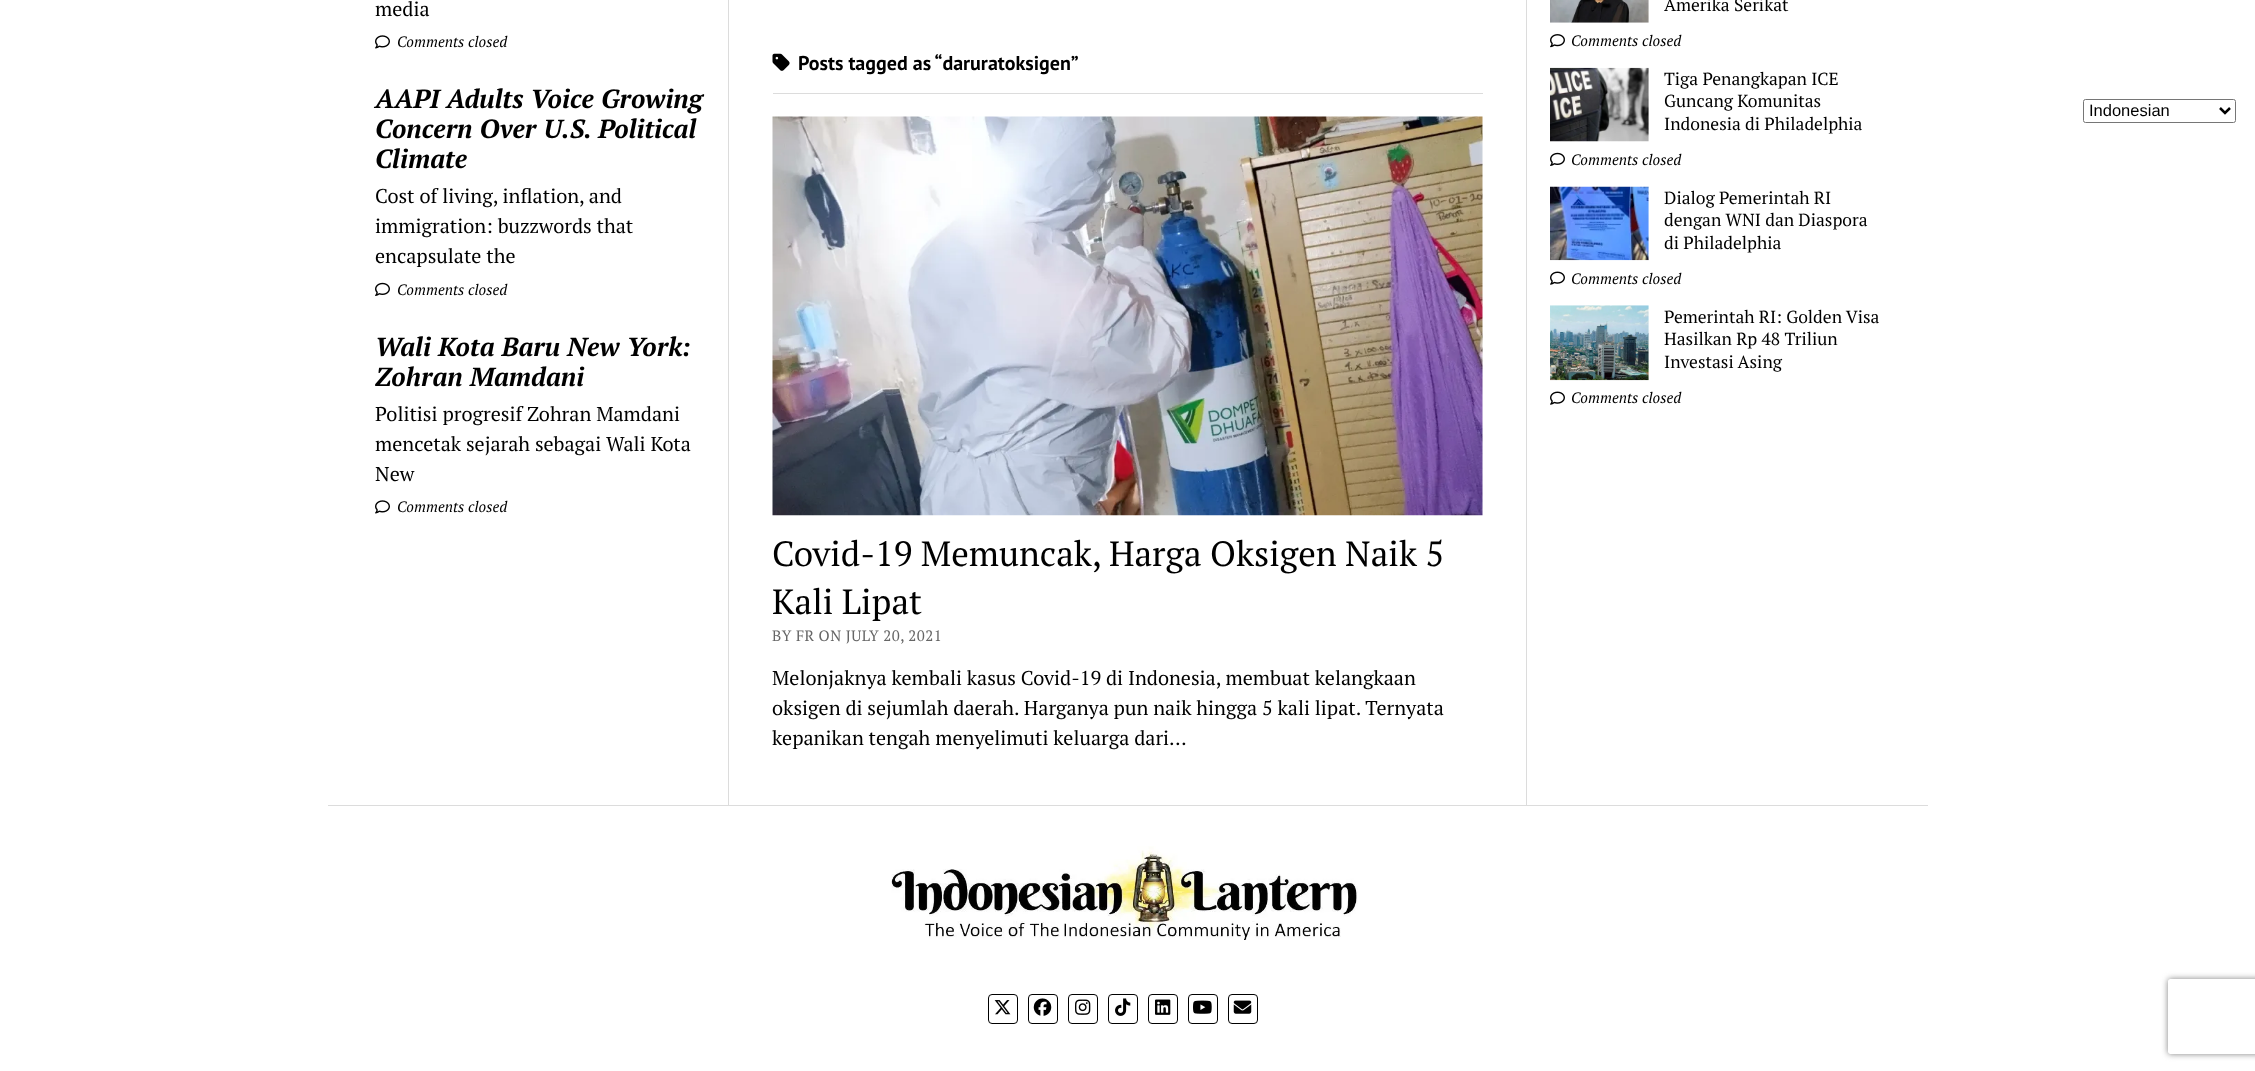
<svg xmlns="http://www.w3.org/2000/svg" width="2255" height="1071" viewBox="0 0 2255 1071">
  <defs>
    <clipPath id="clip1"><path d="M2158 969H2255V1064H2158ZM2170.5 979H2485.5C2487 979 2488 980 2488 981.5V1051.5C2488 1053 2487 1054 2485.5 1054H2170.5C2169 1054 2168 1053 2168 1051.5V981.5C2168 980 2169 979 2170.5 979Z" clip-rule="evenodd"/></clipPath>
  </defs>
  <rect width="100%" height="100%" fill="rgb(255,255,255)"/>
  <text x="375" y="16" font-family="PT Serif" font-size="20" fill="rgb(0,0,0)">media</text>
  <image x="375" y="35" width="15" height="14" href="pic1.png"/>
  <text x="397" y="47" font-family="PT Serif" font-size="15" font-style="italic" fill="rgb(0,0,0)">Comments closed</text>
  <g font-family="PT Serif" font-size="26.25" font-weight="bold" font-style="italic" fill="rgb(0,0,0)">
    <text>
      <tspan x="375" y="108">AAPI Adults Voice Growing</tspan>
      <tspan x="375" y="138">Concern Over U.S. Political</tspan>
      <tspan x="375" y="168">Climate</tspan>
    </text>
  </g>
  <g font-family="PT Serif" font-size="20" fill="rgb(0,0,0)">
    <text>
      <tspan x="375" y="203">Cost of living, inflation, and</tspan>
      <tspan x="375" y="233">immigration: buzzwords that</tspan>
      <tspan x="375" y="263">encapsulate the</tspan>
    </text>
  </g>
  <image x="375" y="282" width="15" height="14" href="pic2.png"/>
  <text x="397" y="295" font-family="PT Serif" font-size="15" font-style="italic" fill="rgb(0,0,0)">Comments closed</text>
  <g font-family="PT Serif" font-size="26.25" font-weight="bold" font-style="italic" fill="rgb(0,0,0)">
    <text>
      <tspan x="375" y="356">Wali Kota Baru New York:</tspan>
      <tspan x="375" y="386">Zohran Mamdani</tspan>
    </text>
  </g>
  <g font-family="PT Serif" font-size="20" fill="rgb(0,0,0)">
    <text>
      <tspan x="375" y="421">Politisi progresif Zohran Mamdani</tspan>
      <tspan x="375" y="451">mencetak sejarah sebagai Wali Kota</tspan>
      <tspan x="375" y="481">New</tspan>
    </text>
  </g>
  <image x="375" y="500" width="15" height="14" href="pic1.png"/>
  <text x="397" y="512" font-family="PT Serif" font-size="15" font-style="italic" fill="rgb(0,0,0)">Comments closed</text>
  <rect x="773" y="93" width="710" height="1" fill="rgb(220,220,220)"/>
  <image x="772" y="53" width="18" height="18" href="pic3.png"/>
  <text x="798" y="70" font-family="PT Sans" font-size="20" font-weight="bold" fill="rgb(0,0,0)">Posts tagged as “daruratoksigen”</text>
  <image x="772" y="116" width="711" height="400" href="pic4.png"/>
  <g font-family="PT Serif" font-size="35" fill="rgb(0,0,0)">
    <text>
      <tspan x="772" y="566">Covid-19 Memuncak, Harga Oksigen Naik 5</tspan>
      <tspan x="772" y="614">Kali Lipat</tspan>
    </text>
  </g>
  <text x="772" y="641" font-family="PT Serif" font-size="15" letter-spacing="0.45" fill="rgb(102,102,102)">BY FR ON JULY 20, 2021</text>
  <g font-family="PT Serif" font-size="20" fill="rgb(0,0,0)">
    <text>
      <tspan x="772" y="685">Melonjaknya kembali kasus Covid-19 di Indonesia, membuat kelangkaan</tspan>
      <tspan x="772" y="715">oksigen di sejumlah daerah. Harganya pun naik hingga 5 kali lipat. Ternyata</tspan>
      <tspan x="772" y="745">kepanikan tengah menyelimuti keluarga dari…</tspan>
    </text>
  </g>
  <image x="1550" y="0" width="99" height="23" href="pic5.png"/>
  <text x="1664" y="11" font-family="PT Serif" font-size="17.5" fill="rgb(0,0,0)">Amerika Serikat</text>
  <image x="1550" y="34" width="15" height="14" href="pic6.png"/>
  <text x="1571" y="46" font-family="PT Serif" font-size="15" font-style="italic" fill="rgb(0,0,0)">Comments closed</text>
  <image x="1550" y="67" width="99" height="75" href="pic7.png"/>
  <g font-family="PT Serif" font-size="17.5" fill="rgb(0,0,0)">
    <text>
      <tspan x="1664" y="85">Tiga Penangkapan ICE</tspan>
      <tspan x="1664" y="107">Guncang Komunitas</tspan>
      <tspan x="1664" y="130">Indonesia di Philadelphia</tspan>
    </text>
  </g>
  <image x="1550" y="152" width="15" height="14" href="pic2.png"/>
  <text x="1571" y="165" font-family="PT Serif" font-size="15" font-style="italic" fill="rgb(0,0,0)">Comments closed</text>
  <image x="1550" y="186" width="99" height="75" href="pic8.png"/>
  <g font-family="PT Serif" font-size="17.5" fill="rgb(0,0,0)">
    <text>
      <tspan x="1664" y="204">Dialog Pemerintah RI</tspan>
      <tspan x="1664" y="226">dengan WNI dan Diaspora</tspan>
      <tspan x="1664" y="249">di Philadelphia</tspan>
    </text>
  </g>
  <image x="1550" y="271" width="15" height="14" href="pic9.png"/>
  <text x="1571" y="284" font-family="PT Serif" font-size="15" font-style="italic" fill="rgb(0,0,0)">Comments closed</text>
  <image x="1550" y="305" width="99" height="76" href="pic10.png"/>
  <g font-family="PT Serif" font-size="17.5" fill="rgb(0,0,0)">
    <text>
      <tspan x="1664" y="323">Pemerintah RI: Golden Visa</tspan>
      <tspan x="1664" y="345">Hasilkan Rp 48 Triliun</tspan>
      <tspan x="1664" y="368">Investasi Asing</tspan>
    </text>
  </g>
  <image x="1550" y="391" width="15" height="14" href="pic9.png"/>
  <text x="1571" y="403" font-family="PT Serif" font-size="15" font-style="italic" fill="rgb(0,0,0)">Comments closed</text>
  <rect x="728" y="0" width="1" height="805" fill="rgb(220,220,220)"/>
  <rect x="1526" y="0" width="1" height="805" fill="rgb(220,220,220)"/>
  <rect x="328" y="805" width="1600" height="1" fill="rgb(220,220,220)"/>
  <image x="891" y="846" width="467" height="94" href="pic11.png"/>
  <rect x="988.5" y="994.5" width="29" height="29" rx="3.5" fill="none" stroke="rgb(0,0,0)"/>
  <image x="994" y="1000" width="17" height="15" href="pic12.png"/>
  <rect x="1028.5" y="994.5" width="29" height="29" rx="3.5" fill="none" stroke="rgb(0,0,0)"/>
  <image x="1033" y="998" width="19" height="18" href="pic13.png"/>
  <rect x="1068.5" y="994.5" width="29" height="29" rx="3.5" fill="none" stroke="rgb(0,0,0)"/>
  <image x="1075" y="999" width="16" height="16" href="pic14.png"/>
  <rect x="1108.5" y="994.5" width="29" height="29" rx="3.5" fill="none" stroke="rgb(0,0,0)"/>
  <image x="1115" y="998" width="16" height="18" href="pic15.png"/>
  <rect x="1148.5" y="994.5" width="29" height="29" rx="3.5" fill="none" stroke="rgb(0,0,0)"/>
  <image x="1155" y="999" width="16" height="16" href="pic16.png"/>
  <rect x="1188.5" y="994.5" width="29" height="29" rx="3.5" fill="none" stroke="rgb(0,0,0)"/>
  <image x="1193" y="1000" width="19" height="14" href="pic17.png"/>
  <rect x="1228.5" y="994.5" width="29" height="29" rx="3.5" fill="none" stroke="rgb(0,0,0)"/>
  <image x="1233" y="1000" width="19" height="14" href="pic18.png"/>
  <rect x="2083.5" y="99.5" width="152" height="23" rx="2" fill="none" stroke="rgb(118,118,118)"/>
  <path d="M2220 108L2225 113L2230 108" fill="none" stroke="rgb(0,0,0)" stroke-width="2.5"/>
  <text x="2089" y="116" font-family="Liberation Sans" font-size="16.5" fill="rgb(0,0,0)">Indonesian</text>
  <g clip-path="url(#clip1)">
    <rect x="2168" y="979" width="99" height="75" rx="2.5" fill="rgb(128,128,128)" filter="blur(3px)"/>
  </g>
</svg>
